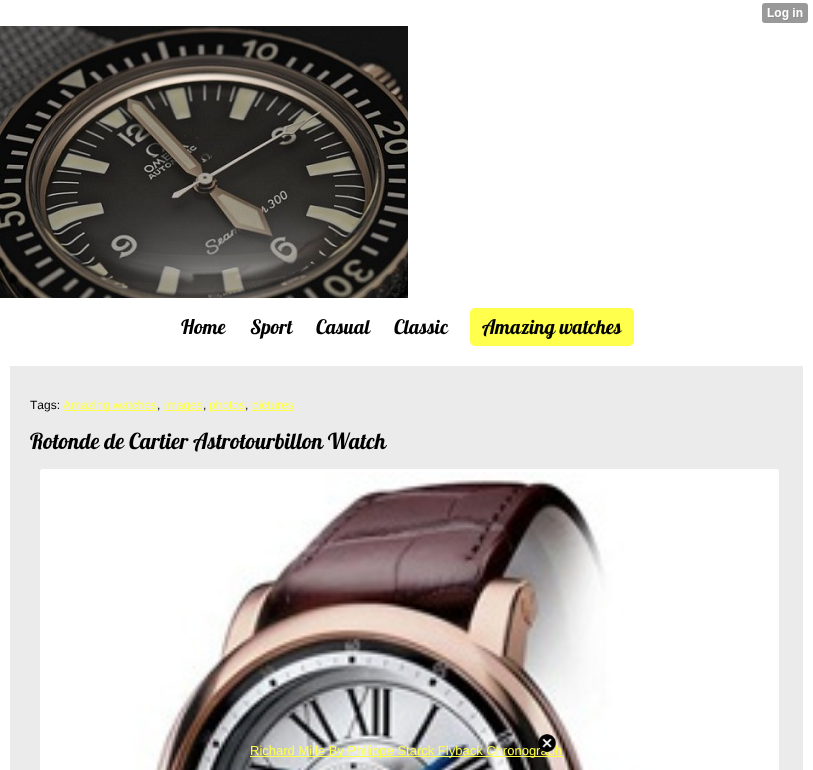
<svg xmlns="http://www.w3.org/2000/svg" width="813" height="770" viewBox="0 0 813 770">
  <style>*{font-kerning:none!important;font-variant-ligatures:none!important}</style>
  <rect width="100%" height="100%" fill="rgb(255,255,255)"/>
  <image x="762" y="3" width="46" height="20" href="pic1.png"/>
  <image x="0" y="26" width="408" height="272" href="pic2.png"/>
  <g font-family="Lobster" font-size="20" fill="rgb(0,0,0)">
    <text x="181" y="334">Home</text>
    <text x="250" y="334">Sport</text>
    <text x="316" y="334">Casual</text>
    <text x="394" y="334">Classic</text>
  </g>
  <rect x="470" y="308" width="164" height="38" rx="5" fill="rgb(255,255,76)"/>
  <text x="482" y="334" font-family="Lobster" font-size="20" fill="rgb(0,0,0)">Amazing watches</text>
  <rect x="10" y="366" width="793" height="404" fill="rgb(235,235,235)"/>
  <text x="30" y="409" font-family="Liberation Sans" font-size="12" fill="rgb(0,0,0)">Tags:</text>
  <rect x="63" y="410" width="94" height="1" fill="rgb(255,255,76)"/>
  <text x="63" y="409" font-family="Liberation Sans" font-size="12" fill="rgb(255,255,76)">Amazing watches</text>
  <text x="157" y="409" font-family="Liberation Sans" font-size="12" fill="rgb(0,0,0)">,</text>
  <rect x="164" y="410" width="39" height="1" fill="rgb(255,255,76)"/>
  <text x="164" y="409" font-family="Liberation Sans" font-size="12" fill="rgb(255,255,76)">images</text>
  <text x="203" y="409" font-family="Liberation Sans" font-size="12" fill="rgb(0,0,0)">,</text>
  <rect x="209" y="410" width="36" height="1" fill="rgb(255,255,76)"/>
  <text x="209" y="409" font-family="Liberation Sans" font-size="12" fill="rgb(255,255,76)">photos</text>
  <text x="245" y="409" font-family="Liberation Sans" font-size="12" fill="rgb(0,0,0)">,</text>
  <rect x="252" y="410" width="42" height="1" fill="rgb(255,255,76)"/>
  <text x="252" y="409" font-family="Liberation Sans" font-size="12" fill="rgb(255,255,76)">pictures</text>
  <text x="30" y="449" font-family="Lobster" font-size="22" fill="rgb(0,0,0)">Rotonde de Cartier Astrotourbillon Watch</text>
  <rect x="41.5" y="470.5" width="736" height="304" rx="1.5" fill="none" stroke="rgb(255,255,255)" stroke-width="3"/>
  <image x="43" y="472" width="733" height="298" href="pic3.png"/>
  <rect x="250" y="756" width="313" height="1" fill="rgb(255,255,76)"/>
  <text x="250" y="755" font-family="Liberation Sans" font-size="13" fill="rgb(255,255,76)">Richard Mille By Philippe Starck Flyback Chronograph</text>
  <image x="538" y="734" width="18" height="18" href="pic4.png"/>
</svg>
